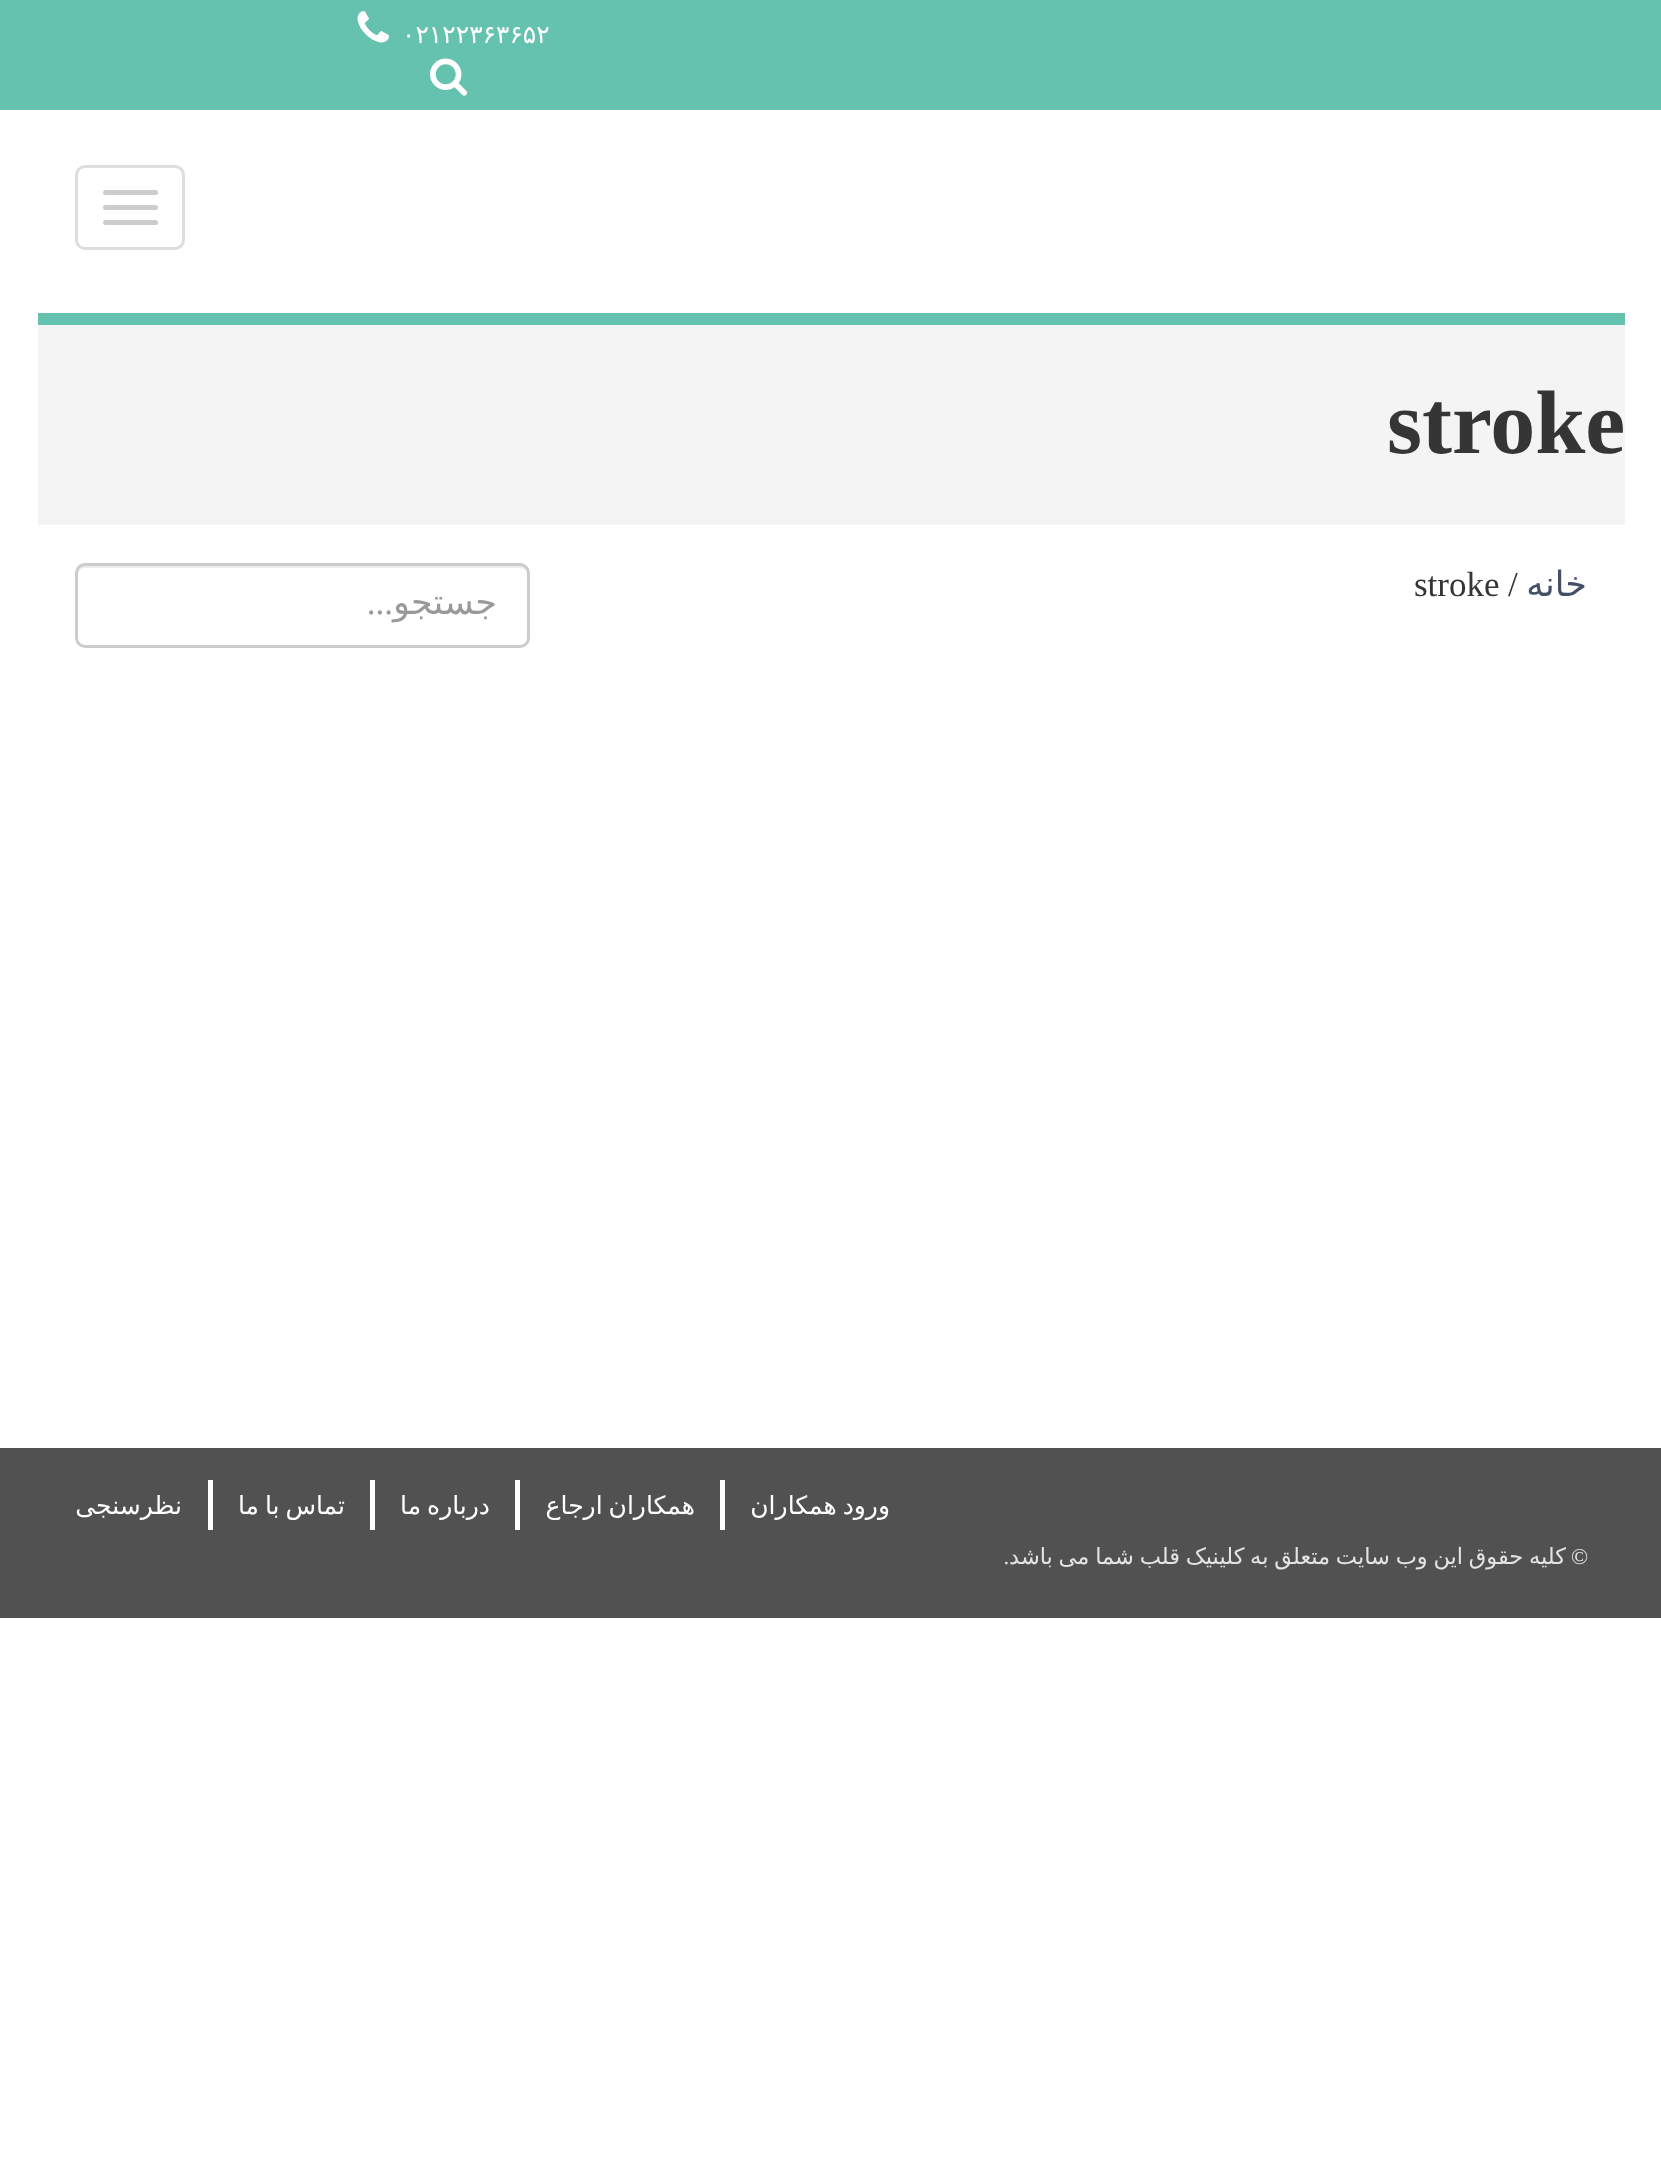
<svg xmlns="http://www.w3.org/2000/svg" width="1661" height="2160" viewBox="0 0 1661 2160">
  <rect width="100%" height="100%" fill="rgb(255,255,255)"/>
  <rect x="0" y="0" width="1661" height="110" fill="rgb(101,194,175)"/>
  <text x="402" y="43" font-family="DejaVu Sans" font-size="25" fill="rgb(255,255,255)">۰۲۱۲۲۳۶۳۶۵۲</text>
  <image x="357" y="11" width="32" height="32" href="pic1.png"/>
  <image x="430" y="58" width="38" height="38" href="pic2.png"/>
  <rect x="76.5" y="166.5" width="107" height="82" rx="8.5" fill="none" stroke="rgb(221,221,221)" stroke-width="3"/>
  <rect x="103" y="190" width="55" height="5" rx="2.5" fill="rgb(204,204,204)"/>
  <rect x="103" y="205" width="55" height="5" rx="2.5" fill="rgb(204,204,204)"/>
  <rect x="103" y="220" width="55" height="5" rx="2.5" fill="rgb(204,204,204)"/>
  <rect x="38" y="325" width="1587" height="200" fill="rgb(244,244,244)"/>
  <rect x="38" y="313" width="1587" height="12" fill="rgb(101,194,175)"/>
  <text x="1387" y="453" font-family="Liberation Serif" font-size="90" font-weight="bold" fill="rgb(53,53,53)">stroke</text>
  <text x="1587" y="596" font-family="DejaVu Sans" font-size="35" direction="rtl" fill="rgb(68,78,103)">خانه</text>
  <g font-family="Liberation Serif" font-size="35" fill="rgb(53,53,53)">
    <text x="1508" y="596">/</text>
    <text x="1414" y="596">stroke</text>
  </g>
  <path d="M85 568H520C524 568 528 571 528 575C528 570 526 565 520 565H86C80 565 78 570 78 575C78 571 81 568 85 568Z" fill="rgb(236,236,236)"/>
  <rect x="76.5" y="564.5" width="452" height="82" rx="8.5" fill="none" stroke="rgb(204,204,204)" stroke-width="3"/>
  <text x="497" y="614" font-family="DejaVu Sans" font-size="35" direction="rtl" fill="rgb(153,153,153)">جستجو</text>
  <text x="393" y="614" font-family="Liberation Serif" font-size="35" direction="rtl" fill="rgb(153,153,153)">...</text>
  <rect x="0" y="1448" width="1661" height="170" fill="rgb(81,81,81)"/>
  <rect x="720" y="1480" width="5" height="50" fill="rgb(255,255,255)"/>
  <text x="890" y="1514" word-spacing="-2" font-family="DejaVu Sans" font-size="25" direction="rtl" fill="rgb(255,255,255)">ورود همکاران</text>
  <rect x="515" y="1480" width="5" height="50" fill="rgb(255,255,255)"/>
  <text x="695" y="1514" word-spacing="-2" font-family="DejaVu Sans" font-size="25" direction="rtl" fill="rgb(255,255,255)">همکاران ارجاع</text>
  <rect x="370" y="1480" width="5" height="50" fill="rgb(255,255,255)"/>
  <text x="490" y="1514" word-spacing="-2" font-family="DejaVu Sans" font-size="25" direction="rtl" fill="rgb(255,255,255)">درباره ما</text>
  <rect x="208" y="1480" width="5" height="50" fill="rgb(255,255,255)"/>
  <g font-family="DejaVu Sans" font-size="25" direction="rtl" fill="rgb(255,255,255)">
    <text x="345" y="1514" word-spacing="-2">تماس با ما</text>
    <text x="182" y="1514">نظرسنجی</text>
  </g>
  <text x="1588" y="1564" font-family="Liberation Serif" font-size="22.5" direction="rtl" fill="rgb(228,228,228)">©</text>
  <text x="1566" y="1564" word-spacing="-1.4" font-family="DejaVu Sans" font-size="22.5" direction="rtl" fill="rgb(228,228,228)">کلیه حقوق این وب سایت متعلق به کلینیک قلب شما می باشد</text>
  <text x="1009" y="1564" font-family="Liberation Serif" font-size="22.5" direction="rtl" fill="rgb(228,228,228)">.</text>
</svg>
